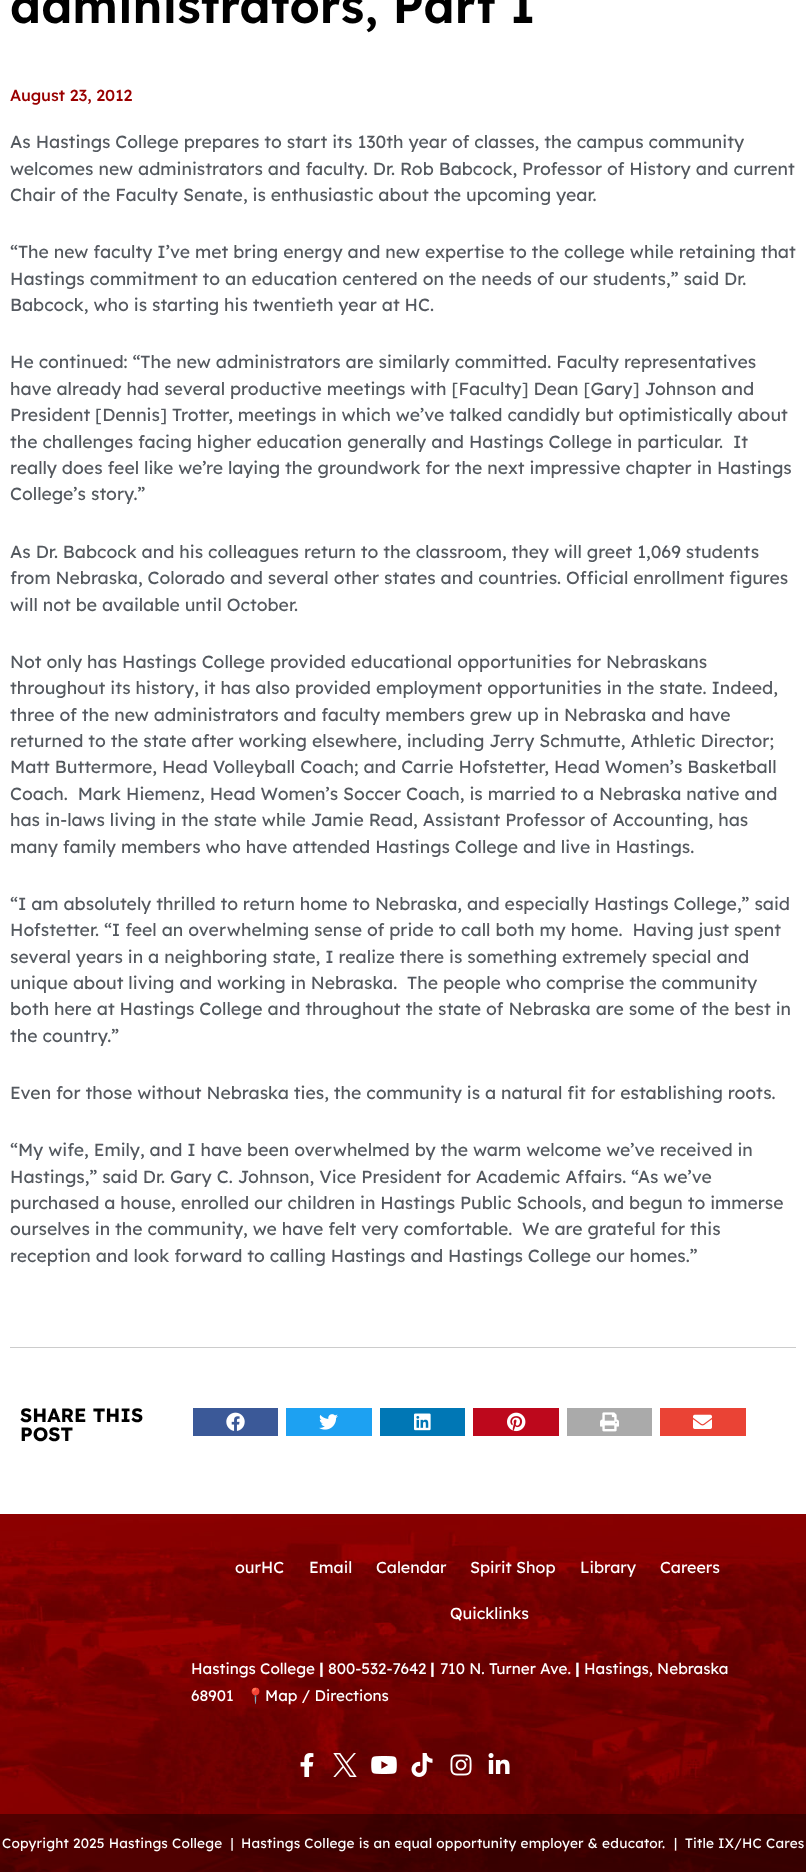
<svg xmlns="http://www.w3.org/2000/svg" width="806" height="1872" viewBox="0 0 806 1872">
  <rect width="100%" height="100%" fill="rgb(255,255,255)"/>
  <text x="10" y="23" font-family="Lexend Deca" font-size="48" font-weight="600" fill="rgb(0,0,0)">administrators, Part I</text>
  <text x="10" y="101" font-family="Lexend Deca" font-size="16" font-weight="500" fill="rgb(153,0,0)">August 23, 2012</text>
  <g font-family="Lexend Deca" font-size="17.6" fill="rgb(84,89,95)">
    <text>
      <tspan x="10" y="148">As Hastings College prepares to start its 130th year of classes, the campus community</tspan>
      <tspan x="10" y="175">welcomes new administrators and faculty. Dr. Rob Babcock, Professor of History and current</tspan>
      <tspan x="10" y="201">Chair of the Faculty Senate, is enthusiastic about the upcoming year.</tspan>
    </text>
    <text>
      <tspan x="10" y="258">“The new faculty I’ve met bring energy and new expertise to the college while retaining that</tspan>
      <tspan x="10" y="285">Hastings commitment to an education centered on the needs of our students,” said Dr.</tspan>
      <tspan x="10" y="311">Babcock, who is starting his twentieth year at HC.</tspan>
    </text>
    <text xml:space="preserve"><tspan x="10" y="368">He continued: “The new administrators are similarly committed. Faculty representatives</tspan><tspan x="10" y="395">have already had several productive meetings with [Faculty] Dean [Gary] Johnson and</tspan><tspan x="10" y="421">President [Dennis] Trotter, meetings in which we’ve talked candidly but optimistically about</tspan><tspan x="10" y="448">the challenges facing higher education generally and Hastings College in particular.  It</tspan><tspan x="10" y="474">really does feel like we’re laying the groundwork for the next impressive chapter in Hastings</tspan><tspan x="10" y="500">College’s story.”</tspan></text>
    <text>
      <tspan x="10" y="558">As Dr. Babcock and his colleagues return to the classroom, they will greet 1,069 students</tspan>
      <tspan x="10" y="584">from Nebraska, Colorado and several other states and countries. Official enrollment figures</tspan>
      <tspan x="10" y="611">will not be available until October.</tspan>
    </text>
    <text xml:space="preserve"><tspan x="10" y="668">Not only has Hastings College provided educational opportunities for Nebraskans</tspan><tspan x="10" y="694">throughout its history, it has also provided employment opportunities in the state. Indeed,</tspan><tspan x="10" y="721">three of the new administrators and faculty members grew up in Nebraska and have</tspan><tspan x="10" y="747">returned to the state after working elsewhere, including Jerry Schmutte, Athletic Director;</tspan><tspan x="10" y="773">Matt Buttermore, Head Volleyball Coach; and Carrie Hofstetter, Head Women’s Basketball</tspan><tspan x="10" y="800">Coach.  Mark Hiemenz, Head Women’s Soccer Coach, is married to a Nebraska native and</tspan><tspan x="10" y="826">has in-laws living in the state while Jamie Read, Assistant Professor of Accounting, has</tspan><tspan x="10" y="853">many family members who have attended Hastings College and live in Hastings.</tspan></text>
    <text xml:space="preserve"><tspan x="10" y="910">“I am absolutely thrilled to return home to Nebraska, and especially Hastings College,” said</tspan><tspan x="10" y="936">Hofstetter. “I feel an overwhelming sense of pride to call both my home.  Having just spent</tspan><tspan x="10" y="963">several years in a neighboring state, I realize there is something extremely special and</tspan><tspan x="10" y="989">unique about living and working in Nebraska.  The people who comprise the community</tspan><tspan x="10" y="1015">both here at Hastings College and throughout the state of Nebraska are some of the best in</tspan><tspan x="10" y="1042">the country.”</tspan></text>
    <text x="10" y="1099">Even for those without Nebraska ties, the community is a natural fit for establishing roots.</text>
    <text xml:space="preserve"><tspan x="10" y="1156">“My wife, Emily, and I have been overwhelmed by the warm welcome we’ve received in</tspan><tspan x="10" y="1183">Hastings,” said Dr. Gary C. Johnson, Vice President for Academic Affairs. “As we’ve</tspan><tspan x="10" y="1209">purchased a house, enrolled our children in Hastings Public Schools, and begun to immerse</tspan><tspan x="10" y="1235">ourselves in the community, we have felt very comfortable.  We are grateful for this</tspan><tspan x="10" y="1262">reception and look forward to calling Hastings and Hastings College our homes.”</tspan></text>
  </g>
  <rect x="10" y="1347" width="786" height="1" fill="rgb(204,204,204)"/>
  <g font-family="Lexend Deca" font-size="19.25" font-weight="bold" fill="rgb(0,0,0)">
    <text>
      <tspan x="20" y="1422">SHARE THIS</tspan>
      <tspan x="20" y="1441">POST</tspan>
    </text>
  </g>
  <rect x="193" y="1408" width="85" height="28" fill="rgb(59,89,152)"/>
  <image x="226" y="1412" width="19" height="19" href="pic1.png"/>
  <rect x="286" y="1408" width="86" height="28" fill="rgb(29,161,242)"/>
  <image x="319" y="1414" width="19" height="16" href="pic2.png"/>
  <rect x="380" y="1408" width="85" height="28" fill="rgb(0,119,181)"/>
  <image x="414" y="1413" width="17" height="18" href="pic3.png"/>
  <rect x="473" y="1408" width="86" height="28" fill="rgb(189,8,28)"/>
  <image x="507" y="1412" width="19" height="20" href="pic4.png"/>
  <rect x="567" y="1408" width="85" height="28" fill="rgb(170,170,170)"/>
  <image x="600" y="1412" width="19" height="20" href="pic5.png"/>
  <rect x="660" y="1408" width="86" height="28" fill="rgb(234,67,53)"/>
  <image x="693" y="1414" width="19" height="15" href="pic6.png"/>
  <image x="0" y="1514" width="806" height="358" href="pic7.png"/>
  <g font-family="Lexend Deca" font-size="16" fill="rgb(255,255,255)">
    <text x="235" y="1573">ourHC</text>
    <text x="309" y="1573">Email</text>
    <text x="376" y="1573">Calendar</text>
    <text x="470" y="1573">Spirit Shop</text>
    <text x="580" y="1573">Library</text>
    <text x="660" y="1573">Careers</text>
    <text x="450" y="1619">Quicklinks</text>
  </g>
  <text x="191" y="1674" font-family="Lexend Deca" font-size="15.25" fill="rgb(255,255,255)">Hastings College</text>
  <text x="319" y="1674" font-family="Lexend Deca" font-size="15.25" font-weight="bold" fill="rgb(255,255,255)">|</text>
  <text x="328" y="1674" font-family="Lexend Deca" font-size="15.25" fill="rgb(255,255,255)">800-532-7642</text>
  <text x="430" y="1674" font-family="Lexend Deca" font-size="15.25" font-weight="bold" fill="rgb(255,255,255)">|</text>
  <text x="440" y="1674" font-family="Lexend Deca" font-size="15.25" fill="rgb(255,255,255)">710 N. Turner Ave.</text>
  <text x="575" y="1674" font-family="Lexend Deca" font-size="15.25" font-weight="bold" fill="rgb(255,255,255)">|</text>
  <g font-family="Lexend Deca" font-size="15.25" fill="rgb(255,255,255)">
    <text x="584" y="1674">Hastings, Nebraska</text>
    <text x="191" y="1701">68901</text>
  </g>
  <text x="246" y="1701" font-family="Noto Color Emoji" font-size="15.25" fill="rgb(255,255,255)">📍</text>
  <text x="265" y="1701" font-family="Lexend Deca" font-size="15.25" fill="rgb(255,255,255)">Map / Directions</text>
  <image x="300" y="1753" width="14" height="24" href="pic8.png"/>
  <image x="333" y="1753" width="24" height="24" href="pic9.png"/>
  <image x="371" y="1756" width="26" height="18" href="pic10.png"/>
  <image x="411" y="1753" width="22" height="24" href="pic11.png"/>
  <image x="450" y="1754" width="22" height="22" href="pic12.png"/>
  <image x="488" y="1753" width="22" height="21" href="pic13.png"/>
  <rect x="0" y="1814" width="806" height="58" fill="rgba(0,0,0,0.4)"/>
  <g font-family="Lexend Deca" font-size="13.6" letter-spacing="0.2" fill="rgb(255,255,255)">
    <text x="2" y="1848" xml:space="preserve">Copyright 2025 Hastings College  |</text>
    <text x="241" y="1848">Hastings College is an equal opportunity employer &amp; educator.</text>
    <text x="674" y="1848">|</text>
    <text x="685" y="1848">Title IX/HC Cares</text>
  </g>
</svg>
